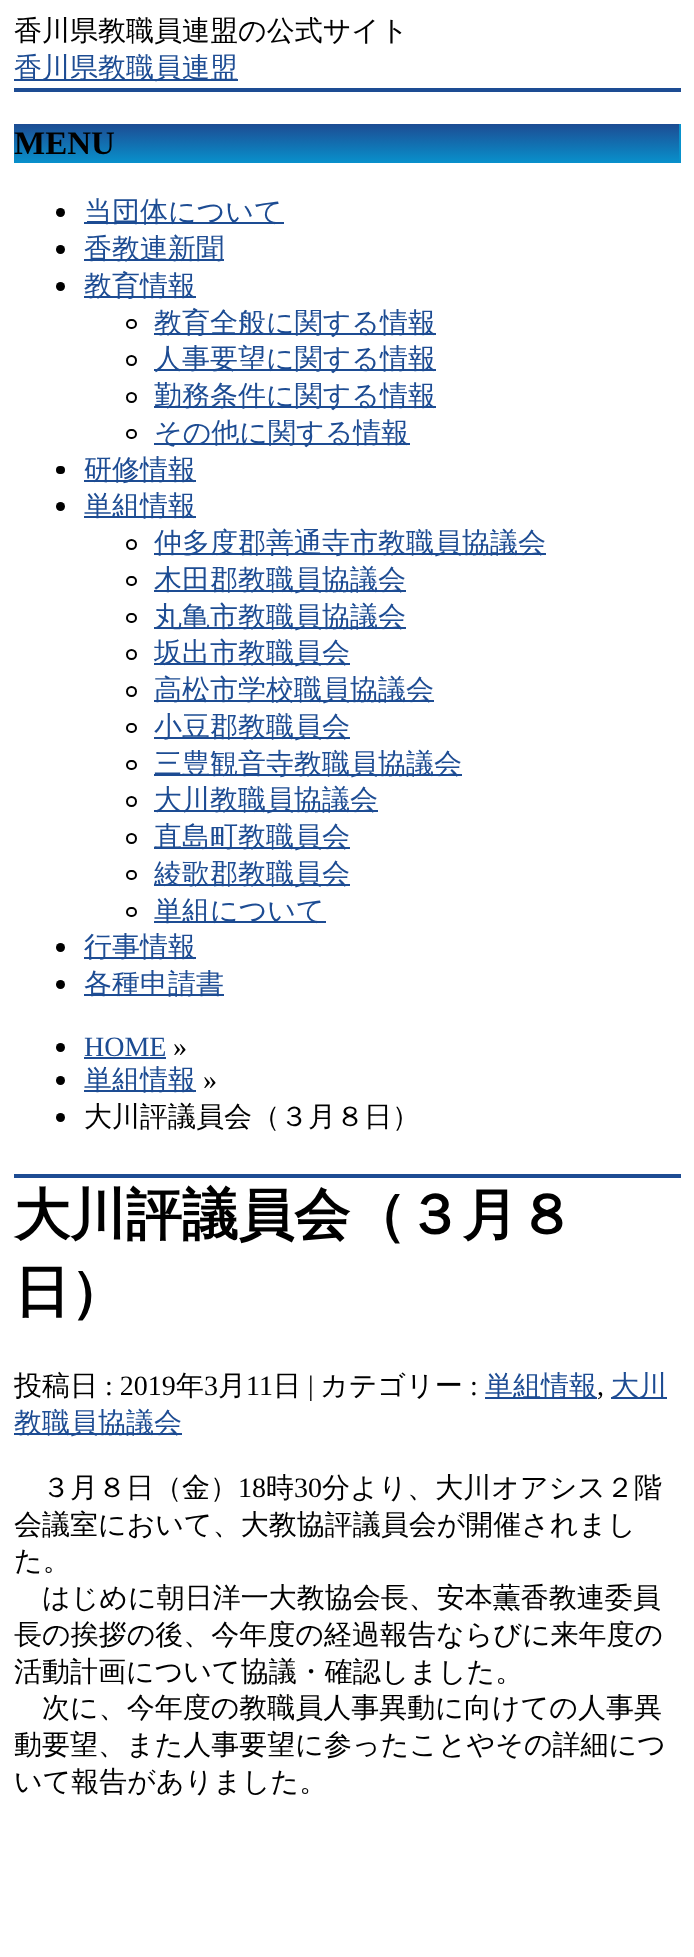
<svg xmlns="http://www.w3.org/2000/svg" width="694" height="1957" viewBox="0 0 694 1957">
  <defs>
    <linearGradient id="g1" gradientUnits="userSpaceOnUse" x1="347" y1="124" x2="347" y2="163"><stop offset="0" stop-color="rgb(29,76,147)"/><stop offset="1" stop-color="rgb(8,145,204)"/></linearGradient>
  </defs>
  <rect width="100%" height="100%" fill="rgb(255,255,255)"/>
  <text x="14" y="40" font-family="WenQuanYi Zen Hei" font-size="28" font-weight="500" fill="rgb(0,0,0)">香川県教職員連盟の公式サイト</text>
  <rect x="14" y="79" width="224" height="2" fill="rgb(29,76,147)"/>
  <text x="14" y="77" font-family="WenQuanYi Zen Hei" font-size="28" font-weight="500" fill="rgb(29,76,147)">香川県教職員連盟</text>
  <rect x="14" y="88" width="667" height="4" fill="rgb(29,76,147)"/>
  <rect x="14" y="124" width="665" height="39" fill="url(#g1)"/>
  <rect x="679" y="124" width="2" height="39" fill="rgb(8,145,204)"/>
  <text x="14" y="154" font-family="Liberation Serif" font-size="33" font-weight="bold" fill="rgb(0,0,0)">MENU</text>
  <circle cx="60.5" cy="212.5" r="4.5" fill="rgb(0,0,0)"/>
  <rect x="84" y="222" width="200" height="2" fill="rgb(29,76,147)"/>
  <text x="84" y="221" font-family="WenQuanYi Zen Hei" font-size="28" font-weight="500" fill="rgb(29,76,147)">当団体について</text>
  <circle cx="60.5" cy="249.5" r="4.5" fill="rgb(0,0,0)"/>
  <rect x="84" y="259" width="140" height="2" fill="rgb(29,76,147)"/>
  <text x="84" y="258" font-family="WenQuanYi Zen Hei" font-size="28" font-weight="500" fill="rgb(29,76,147)">香教連新聞</text>
  <circle cx="60.5" cy="286.5" r="4.5" fill="rgb(0,0,0)"/>
  <rect x="84" y="296" width="112" height="2" fill="rgb(29,76,147)"/>
  <text x="84" y="295" font-family="WenQuanYi Zen Hei" font-size="28" font-weight="500" fill="rgb(29,76,147)">教育情報</text>
  <rect x="127" y="320" width="9" height="8" rx="4" fill="none" stroke="rgb(0,0,0)" stroke-width="2"/>
  <rect x="154" y="333" width="282" height="2" fill="rgb(29,76,147)"/>
  <text x="154" y="332" font-family="WenQuanYi Zen Hei" font-size="28" font-weight="500" fill="rgb(29,76,147)">教育全般に関する情報</text>
  <circle cx="131.5" cy="360.5" r="4.5" fill="none" stroke="rgb(0,0,0)" stroke-width="2"/>
  <rect x="154" y="369" width="282" height="2" fill="rgb(29,76,147)"/>
  <text x="154" y="368" font-family="WenQuanYi Zen Hei" font-size="28" font-weight="500" fill="rgb(29,76,147)">人事要望に関する情報</text>
  <circle cx="131.5" cy="397.5" r="4.5" fill="none" stroke="rgb(0,0,0)" stroke-width="2"/>
  <rect x="154" y="406" width="282" height="2" fill="rgb(29,76,147)"/>
  <text x="154" y="405" font-family="WenQuanYi Zen Hei" font-size="28" font-weight="500" fill="rgb(29,76,147)">勤務条件に関する情報</text>
  <rect x="127" y="430" width="9" height="8" rx="4" fill="none" stroke="rgb(0,0,0)" stroke-width="2"/>
  <rect x="154" y="443" width="256" height="2" fill="rgb(29,76,147)"/>
  <text x="154" y="442" font-family="WenQuanYi Zen Hei" font-size="28" font-weight="500" fill="rgb(29,76,147)">その他に関する情報</text>
  <rect x="56" y="466" width="9" height="8" rx="4" fill="rgb(0,0,0)"/>
  <rect x="84" y="480" width="112" height="2" fill="rgb(29,76,147)"/>
  <text x="84" y="479" font-family="WenQuanYi Zen Hei" font-size="28" font-weight="500" fill="rgb(29,76,147)">研修情報</text>
  <circle cx="60.5" cy="506.5" r="4.5" fill="rgb(0,0,0)"/>
  <rect x="84" y="516" width="112" height="2" fill="rgb(29,76,147)"/>
  <text x="84" y="515" font-family="WenQuanYi Zen Hei" font-size="28" font-weight="500" fill="rgb(29,76,147)">単組情報</text>
  <circle cx="131.5" cy="544.5" r="4.5" fill="none" stroke="rgb(0,0,0)" stroke-width="2"/>
  <rect x="154" y="553" width="392" height="2" fill="rgb(29,76,147)"/>
  <text x="154" y="552" font-family="WenQuanYi Zen Hei" font-size="28" font-weight="500" fill="rgb(29,76,147)">仲多度郡善通寺市教職員協議会</text>
  <rect x="127" y="577" width="9" height="8" rx="4" fill="none" stroke="rgb(0,0,0)" stroke-width="2"/>
  <rect x="154" y="590" width="252" height="2" fill="rgb(29,76,147)"/>
  <text x="154" y="589" font-family="WenQuanYi Zen Hei" font-size="28" font-weight="500" fill="rgb(29,76,147)">木田郡教職員協議会</text>
  <rect x="127" y="614" width="9" height="8" rx="4" fill="none" stroke="rgb(0,0,0)" stroke-width="2"/>
  <rect x="154" y="627" width="252" height="2" fill="rgb(29,76,147)"/>
  <text x="154" y="626" font-family="WenQuanYi Zen Hei" font-size="28" font-weight="500" fill="rgb(29,76,147)">丸亀市教職員協議会</text>
  <circle cx="131.5" cy="654.5" r="4.5" fill="none" stroke="rgb(0,0,0)" stroke-width="2"/>
  <rect x="154" y="663" width="196" height="2" fill="rgb(29,76,147)"/>
  <text x="154" y="662" font-family="WenQuanYi Zen Hei" font-size="28" font-weight="500" fill="rgb(29,76,147)">坂出市教職員会</text>
  <circle cx="131.5" cy="691.5" r="4.5" fill="none" stroke="rgb(0,0,0)" stroke-width="2"/>
  <rect x="154" y="700" width="280" height="2" fill="rgb(29,76,147)"/>
  <text x="154" y="699" font-family="WenQuanYi Zen Hei" font-size="28" font-weight="500" fill="rgb(29,76,147)">高松市学校職員協議会</text>
  <rect x="127" y="724" width="9" height="8" rx="4" fill="none" stroke="rgb(0,0,0)" stroke-width="2"/>
  <rect x="154" y="737" width="196" height="2" fill="rgb(29,76,147)"/>
  <text x="154" y="736" font-family="WenQuanYi Zen Hei" font-size="28" font-weight="500" fill="rgb(29,76,147)">小豆郡教職員会</text>
  <rect x="127" y="761" width="9" height="8" rx="4" fill="none" stroke="rgb(0,0,0)" stroke-width="2"/>
  <rect x="154" y="774" width="308" height="2" fill="rgb(29,76,147)"/>
  <text x="154" y="773" font-family="WenQuanYi Zen Hei" font-size="28" font-weight="500" fill="rgb(29,76,147)">三豊観音寺教職員協議会</text>
  <circle cx="131.5" cy="801.5" r="4.5" fill="none" stroke="rgb(0,0,0)" stroke-width="2"/>
  <rect x="154" y="810" width="224" height="2" fill="rgb(29,76,147)"/>
  <text x="154" y="809" font-family="WenQuanYi Zen Hei" font-size="28" font-weight="500" fill="rgb(29,76,147)">大川教職員協議会</text>
  <circle cx="131.5" cy="838.5" r="4.5" fill="none" stroke="rgb(0,0,0)" stroke-width="2"/>
  <rect x="154" y="847" width="196" height="2" fill="rgb(29,76,147)"/>
  <text x="154" y="846" font-family="WenQuanYi Zen Hei" font-size="28" font-weight="500" fill="rgb(29,76,147)">直島町教職員会</text>
  <rect x="127" y="871" width="9" height="8" rx="4" fill="none" stroke="rgb(0,0,0)" stroke-width="2"/>
  <rect x="154" y="884" width="196" height="2" fill="rgb(29,76,147)"/>
  <text x="154" y="883" font-family="WenQuanYi Zen Hei" font-size="28" font-weight="500" fill="rgb(29,76,147)">綾歌郡教職員会</text>
  <rect x="127" y="908" width="9" height="8" rx="4" fill="none" stroke="rgb(0,0,0)" stroke-width="2"/>
  <rect x="154" y="921" width="172" height="2" fill="rgb(29,76,147)"/>
  <text x="154" y="920" font-family="WenQuanYi Zen Hei" font-size="28" font-weight="500" fill="rgb(29,76,147)">単組について</text>
  <circle cx="60.5" cy="947.5" r="4.5" fill="rgb(0,0,0)"/>
  <rect x="84" y="957" width="112" height="2" fill="rgb(29,76,147)"/>
  <text x="84" y="956" font-family="WenQuanYi Zen Hei" font-size="28" font-weight="500" fill="rgb(29,76,147)">行事情報</text>
  <circle cx="60.5" cy="984.5" r="4.5" fill="rgb(0,0,0)"/>
  <rect x="84" y="994" width="140" height="2" fill="rgb(29,76,147)"/>
  <text x="84" y="993" font-family="WenQuanYi Zen Hei" font-size="28" font-weight="500" fill="rgb(29,76,147)">各種申請書</text>
  <circle cx="60.5" cy="1047.5" r="4.5" fill="rgb(0,0,0)"/>
  <text x="84" y="1056" font-family="Liberation Serif" font-size="28" fill="rgb(29,76,147)">HOME</text>
  <rect x="84" y="1057" width="82" height="2" fill="rgb(29,76,147)"/>
  <text x="173" y="1056" font-family="Liberation Serif" font-size="28" fill="rgb(0,0,0)">»</text>
  <circle cx="60.5" cy="1080.5" r="4.5" fill="rgb(0,0,0)"/>
  <rect x="84" y="1090" width="112" height="2" fill="rgb(29,76,147)"/>
  <text x="84" y="1089" font-family="WenQuanYi Zen Hei" font-size="28" font-weight="500" fill="rgb(29,76,147)">単組情報</text>
  <text x="203" y="1089" font-family="Liberation Serif" font-size="28" fill="rgb(0,0,0)">»</text>
  <circle cx="60.5" cy="1117.5" r="4.5" fill="rgb(0,0,0)"/>
  <text x="84" y="1126" font-family="WenQuanYi Zen Hei" font-size="28" font-weight="500" fill="rgb(0,0,0)">大川評議員会（３月８日）</text>
  <rect x="14" y="1174" width="667" height="4" fill="rgb(29,76,147)"/>
  <g font-family="WenQuanYi Zen Hei" font-size="56" font-weight="bold" fill="rgb(0,0,0)">
    <text>
      <tspan x="14" y="1234">大川評議員会（３月８</tspan>
      <tspan x="14" y="1311">日）</tspan>
    </text>
  </g>
  <text x="14" y="1395" font-family="WenQuanYi Zen Hei" font-size="28" font-weight="500" fill="rgb(0,0,0)">投稿日</text>
  <text x="105" y="1395" font-family="Liberation Serif" font-size="28" fill="rgb(0,0,0)">: 2019</text>
  <text x="176" y="1395" font-family="WenQuanYi Zen Hei" font-size="28" font-weight="500" fill="rgb(0,0,0)">年</text>
  <text x="204" y="1395" font-family="Liberation Serif" font-size="28" fill="rgb(0,0,0)">3</text>
  <text x="218" y="1395" font-family="WenQuanYi Zen Hei" font-size="28" font-weight="500" fill="rgb(0,0,0)">月</text>
  <text x="246" y="1395" font-family="Liberation Serif" font-size="28" fill="rgb(0,0,0)">11</text>
  <text x="273" y="1395" font-family="WenQuanYi Zen Hei" font-size="28" font-weight="500" fill="rgb(0,0,0)">日</text>
  <text x="308" y="1395" font-family="Liberation Serif" font-size="28" fill="rgb(0,0,0)">|</text>
  <text x="320" y="1395" font-family="WenQuanYi Zen Hei" font-size="28" font-weight="500" fill="rgb(0,0,0)">カテゴリー</text>
  <text x="470" y="1395" font-family="Liberation Serif" font-size="28" fill="rgb(0,0,0)">:</text>
  <rect x="485" y="1397" width="112" height="2" fill="rgb(29,76,147)"/>
  <text x="485" y="1395" font-family="WenQuanYi Zen Hei" font-size="28" font-weight="500" fill="rgb(29,76,147)">単組情報</text>
  <text x="597" y="1395" font-family="Liberation Serif" font-size="28" fill="rgb(0,0,0)">,</text>
  <rect x="611" y="1397" width="56" height="2" fill="rgb(29,76,147)"/>
  <text x="611" y="1395" font-family="WenQuanYi Zen Hei" font-size="28" font-weight="500" fill="rgb(29,76,147)">大川</text>
  <rect x="14" y="1433" width="168" height="2" fill="rgb(29,76,147)"/>
  <text x="14" y="1432" font-family="WenQuanYi Zen Hei" font-size="28" font-weight="500" fill="rgb(29,76,147)">教職員協議会</text>
  <text x="42" y="1497" font-family="WenQuanYi Zen Hei" font-size="28" font-weight="500" fill="rgb(0,0,0)">３月８日（金）</text>
  <text x="238" y="1497" font-family="Liberation Serif" font-size="28" fill="rgb(0,0,0)">18</text>
  <text x="266" y="1497" font-family="WenQuanYi Zen Hei" font-size="28" font-weight="500" fill="rgb(0,0,0)">時</text>
  <text x="294" y="1497" font-family="Liberation Serif" font-size="28" fill="rgb(0,0,0)">30</text>
  <g font-family="WenQuanYi Zen Hei" font-size="28" font-weight="500" fill="rgb(0,0,0)">
    <text x="322" y="1497">分より、大川オアシス２階</text>
    <text>
      <tspan x="14" y="1534">会議室において、大教協評議員会が開催されまし</tspan>
      <tspan x="14" y="1570">た。</tspan>
    </text>
    <text x="42" y="1607">はじめに朝日洋一大教協会長、安本薫香教連委員</text>
    <text>
      <tspan x="14" y="1644">長の挨拶の後、今年度の経過報告ならびに来年度の</tspan>
      <tspan x="14" y="1681">活動計画について協議・確認しました。</tspan>
    </text>
    <text x="42" y="1717">次に、今年度の教職員人事異動に向けての人事異</text>
    <text>
      <tspan x="14" y="1754">動要望、また人事要望に参ったことやその詳細につ</tspan>
      <tspan x="14" y="1791">いて報告がありました。</tspan>
    </text>
  </g>
</svg>
